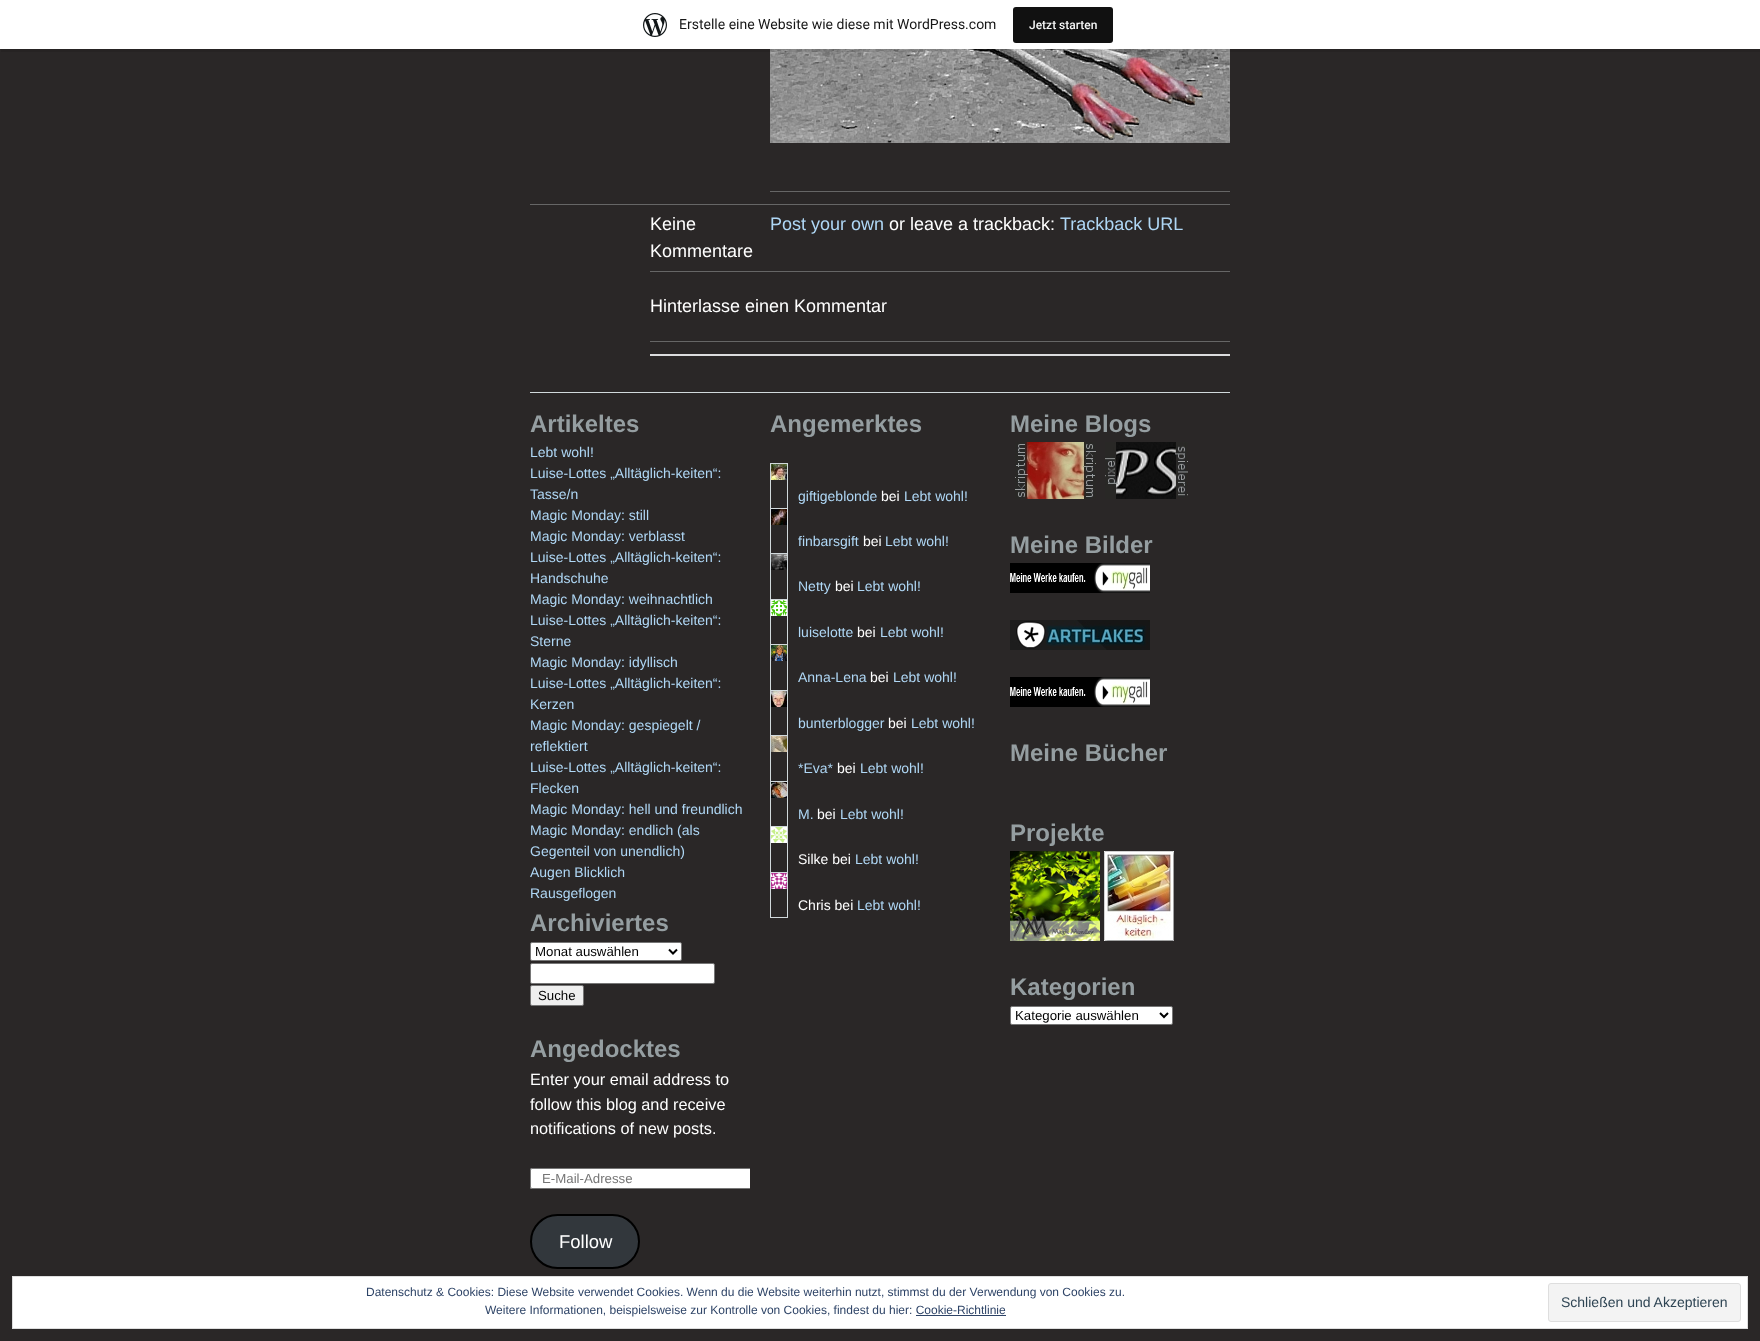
<svg xmlns="http://www.w3.org/2000/svg" width="1760" height="1341" viewBox="0 0 1760 1341">
  <defs>
    <clipPath id="clip1"><rect x="530" y="405" width="220" height="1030"/></clipPath>
  </defs>
  <rect width="100%" height="100%" fill="rgb(42,39,39)"/>
  <image x="770" y="49" width="460" height="94" href="pic2.png"/>
  <path d="M1 49V52H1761V3H1760V49Z" fill="rgba(0,0,0,0.08)"/>
  <rect x="0" y="0" width="1760" height="49" fill="rgb(255,255,255)"/>
  <image x="643" y="13" width="24" height="24" href="pic1.png"/>
  <text x="679" y="29" font-family="Roboto" font-size="14" fill="rgb(23,23,23)">Erstelle eine Website wie diese mit WordPress.com</text>
  <rect x="1013" y="7" width="100" height="36" rx="3" fill="rgb(17,17,17)"/>
  <text x="1029" y="29" font-family="Roboto" font-size="12" font-weight="500" fill="rgb(246,247,247)">Jetzt starten</text>
  <rect x="770" y="191" width="460" height="1" fill="rgb(102,102,102)"/>
  <rect x="530" y="204" width="700" height="1" fill="rgb(102,102,102)"/>
  <g font-family="Liberation Sans" font-size="18" fill="rgb(255,255,255)">
    <text>
      <tspan x="650" y="230">Keine</tspan>
      <tspan x="650" y="257">Kommentare</tspan>
    </text>
  </g>
  <text x="770" y="230" font-family="Liberation Sans" font-size="18" fill="rgb(175,215,245)">Post your own</text>
  <text x="889" y="230" font-family="Liberation Sans" font-size="18" fill="rgb(255,255,255)">or leave a trackback:</text>
  <text x="1060" y="230" font-family="Liberation Sans" font-size="18" fill="rgb(175,215,245)">Trackback URL</text>
  <rect x="650" y="271" width="580" height="1" fill="rgb(102,102,102)"/>
  <text x="650" y="312" font-family="Liberation Sans" font-size="18" fill="rgb(255,255,255)">Hinterlasse einen Kommentar</text>
  <rect x="650" y="341" width="580" height="1" fill="rgb(102,102,102)"/>
  <rect x="650" y="354" width="580" height="2" fill="rgb(220,220,222)"/>
  <rect x="530" y="392" width="700" height="1" fill="rgb(209,217,220)"/>
  <text x="530" y="432" font-family="Liberation Sans" font-size="24" font-weight="bold" fill="rgb(149,158,161)">Artikeltes</text>
  <g font-family="Liberation Sans" font-size="14" fill="rgb(175,215,245)">
    <text>
      <tspan x="530" y="457">Lebt wohl!</tspan>
      <tspan x="530" y="478">Luise-Lottes „Alltäglich-keiten“:</tspan>
      <tspan x="530" y="499">Tasse/n</tspan>
      <tspan x="530" y="520">Magic Monday: still</tspan>
      <tspan x="530" y="541">Magic Monday: verblasst</tspan>
      <tspan x="530" y="562">Luise-Lottes „Alltäglich-keiten“:</tspan>
      <tspan x="530" y="583">Handschuhe</tspan>
      <tspan x="530" y="604">Magic Monday: weihnachtlich</tspan>
      <tspan x="530" y="625">Luise-Lottes „Alltäglich-keiten“:</tspan>
      <tspan x="530" y="646">Sterne</tspan>
      <tspan x="530" y="667">Magic Monday: idyllisch</tspan>
      <tspan x="530" y="688">Luise-Lottes „Alltäglich-keiten“:</tspan>
      <tspan x="530" y="709">Kerzen</tspan>
      <tspan x="530" y="730">Magic Monday: gespiegelt /</tspan>
      <tspan x="530" y="751">reflektiert</tspan>
      <tspan x="530" y="772">Luise-Lottes „Alltäglich-keiten“:</tspan>
      <tspan x="530" y="793">Flecken</tspan>
      <tspan x="530" y="814">Magic Monday: hell und freundlich</tspan>
      <tspan x="530" y="835">Magic Monday: endlich (als</tspan>
      <tspan x="530" y="856">Gegenteil von unendlich)</tspan>
      <tspan x="530" y="877">Augen Blicklich</tspan>
      <tspan x="530" y="898">Rausgeflogen</tspan>
    </text>
  </g>
  <text x="530" y="931" font-family="Liberation Sans" font-size="24" font-weight="bold" fill="rgb(149,158,161)">Archiviertes</text>
  <rect x="530.5" y="942.5" width="151" height="18" rx="1.5" fill="rgb(255,255,255)" stroke="rgb(118,118,118)"/>
  <path d="M669 949.5L673 953.5L677 949.5" fill="none" stroke="rgb(0,0,0)" stroke-width="2"/>
  <text x="535" y="956" font-family="Liberation Sans" font-size="13.25" fill="rgb(0,0,0)">Monat auswählen</text>
  <rect x="530.5" y="963.5" width="184" height="20" rx="1.5" fill="rgb(255,255,255)" stroke="rgb(118,118,118)"/>
  <rect x="530.5" y="985.5" width="53" height="20" rx="1.5" fill="rgb(239,239,239)" stroke="rgb(118,118,118)"/>
  <text x="538" y="1000" font-family="Liberation Sans" font-size="13.25" fill="rgb(0,0,0)">Suche</text>
  <text x="530" y="1057" font-family="Liberation Sans" font-size="24" font-weight="bold" fill="rgb(149,158,161)">Angedocktes</text>
  <g font-family="Liberation Sans" font-size="16.3" fill="rgb(255,255,255)">
    <text>
      <tspan x="530" y="1085">Enter your email address to</tspan>
      <tspan x="530" y="1110">follow this blog and receive</tspan>
      <tspan x="530" y="1134">notifications of new posts.</tspan>
    </text>
  </g>
  <path d="M532 1168H750V1189H532C531 1189 530 1188 530 1187V1170C530 1169 531 1168 532 1168Z" fill="rgb(255,255,255)"/>
  <g clip-path="url(#clip1)">
    <rect x="530.5" y="1168.5" width="232" height="20" rx="1.5" fill="none" stroke="rgb(118,118,118)"/>
  </g>
  <text x="542" y="1183" font-family="Liberation Sans" font-size="13.25" fill="rgb(117,117,117)">E-Mail-Adresse</text>
  <rect x="531" y="1215" width="108" height="53" rx="26.5" fill="rgb(50,55,60)" stroke="rgb(0,0,0)" stroke-width="2"/>
  <text x="559" y="1248" font-family="Liberation Sans" font-size="18.5" fill="rgb(255,255,255)">Follow</text>
  <text x="770" y="432" font-family="Liberation Sans" font-size="24" font-weight="bold" fill="rgb(149,158,161)">Angemerktes</text>
  <rect x="770" y="463" width="18" height="1" fill="rgb(209,217,220)"/>
  <rect x="770" y="508" width="18" height="1" fill="rgb(209,217,220)"/>
  <rect x="770" y="553" width="18" height="1" fill="rgb(209,217,220)"/>
  <rect x="770" y="599" width="18" height="1" fill="rgb(209,217,220)"/>
  <rect x="770" y="644" width="18" height="1" fill="rgb(209,217,220)"/>
  <rect x="770" y="690" width="18" height="1" fill="rgb(209,217,220)"/>
  <rect x="770" y="735" width="18" height="1" fill="rgb(209,217,220)"/>
  <rect x="770" y="781" width="18" height="1" fill="rgb(209,217,220)"/>
  <rect x="770" y="826" width="18" height="1" fill="rgb(209,217,220)"/>
  <rect x="770" y="872" width="18" height="1" fill="rgb(209,217,220)"/>
  <rect x="787" y="872" width="1" height="46" fill="rgb(209,217,220)"/>
  <rect x="787" y="826" width="1" height="47" fill="rgb(209,217,220)"/>
  <rect x="787" y="781" width="1" height="46" fill="rgb(209,217,220)"/>
  <rect x="787" y="735" width="1" height="47" fill="rgb(209,217,220)"/>
  <rect x="787" y="690" width="1" height="46" fill="rgb(209,217,220)"/>
  <rect x="787" y="644" width="1" height="47" fill="rgb(209,217,220)"/>
  <rect x="787" y="599" width="1" height="46" fill="rgb(209,217,220)"/>
  <rect x="787" y="553" width="1" height="47" fill="rgb(209,217,220)"/>
  <rect x="787" y="508" width="1" height="46" fill="rgb(209,217,220)"/>
  <rect x="787" y="463" width="1" height="46" fill="rgb(209,217,220)"/>
  <rect x="770" y="917" width="18" height="1" fill="rgb(209,217,220)"/>
  <rect x="770" y="872" width="1" height="46" fill="rgb(209,217,220)"/>
  <rect x="770" y="826" width="1" height="47" fill="rgb(209,217,220)"/>
  <rect x="770" y="781" width="1" height="46" fill="rgb(209,217,220)"/>
  <rect x="770" y="735" width="1" height="47" fill="rgb(209,217,220)"/>
  <rect x="770" y="690" width="1" height="46" fill="rgb(209,217,220)"/>
  <rect x="770" y="644" width="1" height="47" fill="rgb(209,217,220)"/>
  <rect x="770" y="599" width="1" height="46" fill="rgb(209,217,220)"/>
  <rect x="770" y="553" width="1" height="47" fill="rgb(209,217,220)"/>
  <rect x="770" y="508" width="1" height="46" fill="rgb(209,217,220)"/>
  <rect x="770" y="463" width="1" height="46" fill="rgb(209,217,220)"/>
  <image x="771" y="464" width="16" height="16" href="pic3.png"/>
  <text x="798" y="501" font-family="Liberation Sans" font-size="14" fill="rgb(175,215,245)">giftigeblonde</text>
  <text x="881" y="501" font-family="Liberation Sans" font-size="14" fill="rgb(255,255,255)">bei</text>
  <text x="904" y="501" font-family="Liberation Sans" font-size="14" fill="rgb(175,215,245)">Lebt wohl!</text>
  <image x="771" y="509" width="16" height="16" href="pic4.png"/>
  <text x="798" y="546" font-family="Liberation Sans" font-size="14" fill="rgb(175,215,245)">finbarsgift</text>
  <text x="863" y="546" font-family="Liberation Sans" font-size="14" fill="rgb(255,255,255)">bei</text>
  <text x="885" y="546" font-family="Liberation Sans" font-size="14" fill="rgb(175,215,245)">Lebt wohl!</text>
  <image x="771" y="554" width="16" height="16" href="pic5.png"/>
  <text x="798" y="591" font-family="Liberation Sans" font-size="14" fill="rgb(175,215,245)">Netty</text>
  <text x="835" y="591" font-family="Liberation Sans" font-size="14" fill="rgb(255,255,255)">bei</text>
  <text x="857" y="591" font-family="Liberation Sans" font-size="14" fill="rgb(175,215,245)">Lebt wohl!</text>
  <image x="771" y="600" width="16" height="16" href="pic6.png"/>
  <text x="798" y="637" font-family="Liberation Sans" font-size="14" fill="rgb(175,215,245)">luiselotte</text>
  <text x="857" y="637" font-family="Liberation Sans" font-size="14" fill="rgb(255,255,255)">bei</text>
  <text x="880" y="637" font-family="Liberation Sans" font-size="14" fill="rgb(175,215,245)">Lebt wohl!</text>
  <image x="771" y="645" width="16" height="16" href="pic7.png"/>
  <text x="798" y="682" font-family="Liberation Sans" font-size="14" fill="rgb(175,215,245)">Anna-Lena</text>
  <text x="870" y="682" font-family="Liberation Sans" font-size="14" fill="rgb(255,255,255)">bei</text>
  <text x="893" y="682" font-family="Liberation Sans" font-size="14" fill="rgb(175,215,245)">Lebt wohl!</text>
  <image x="771" y="691" width="16" height="16" href="pic8.png"/>
  <text x="798" y="728" font-family="Liberation Sans" font-size="14" fill="rgb(175,215,245)">bunterblogger</text>
  <text x="888" y="728" font-family="Liberation Sans" font-size="14" fill="rgb(255,255,255)">bei</text>
  <text x="911" y="728" font-family="Liberation Sans" font-size="14" fill="rgb(175,215,245)">Lebt wohl!</text>
  <image x="771" y="736" width="16" height="16" href="pic9.png"/>
  <text x="798" y="773" font-family="Liberation Sans" font-size="14" fill="rgb(175,215,245)">*Eva*</text>
  <text x="837" y="773" font-family="Liberation Sans" font-size="14" fill="rgb(255,255,255)">bei</text>
  <text x="860" y="773" font-family="Liberation Sans" font-size="14" fill="rgb(175,215,245)">Lebt wohl!</text>
  <image x="771" y="782" width="16" height="16" href="pic10.png"/>
  <text x="798" y="819" font-family="Liberation Sans" font-size="14" fill="rgb(175,215,245)">M.</text>
  <text x="817" y="819" font-family="Liberation Sans" font-size="14" fill="rgb(255,255,255)">bei</text>
  <text x="840" y="819" font-family="Liberation Sans" font-size="14" fill="rgb(175,215,245)">Lebt wohl!</text>
  <image x="771" y="827" width="16" height="16" href="pic11.png"/>
  <text x="798" y="864" font-family="Liberation Sans" font-size="14" fill="rgb(255,255,255)">Silke bei</text>
  <text x="855" y="864" font-family="Liberation Sans" font-size="14" fill="rgb(175,215,245)">Lebt wohl!</text>
  <image x="771" y="873" width="16" height="16" href="pic12.png"/>
  <text x="798" y="910" font-family="Liberation Sans" font-size="14" fill="rgb(255,255,255)">Chris bei</text>
  <text x="857" y="910" font-family="Liberation Sans" font-size="14" fill="rgb(175,215,245)">Lebt wohl!</text>
  <text x="1010" y="432" font-family="Liberation Sans" font-size="24" font-weight="bold" fill="rgb(149,158,161)">Meine Blogs</text>
  <image x="1015" y="442" width="81" height="57" href="pic13.png"/>
  <image x="1105" y="442" width="83" height="57" href="pic14.png"/>
  <text x="1010" y="553" font-family="Liberation Sans" font-size="24" font-weight="bold" fill="rgb(149,158,161)">Meine Bilder</text>
  <image x="1010" y="563" width="140" height="30" href="pic15.png"/>
  <image x="1010" y="620" width="140" height="30" href="pic16.png"/>
  <image x="1010" y="677" width="140" height="30" href="pic15.png"/>
  <g font-family="Liberation Sans" font-size="24" font-weight="bold" fill="rgb(149,158,161)">
    <text x="1010" y="761">Meine Bücher</text>
    <text x="1010" y="841">Projekte</text>
  </g>
  <image x="1010" y="851" width="90" height="90" href="pic17.png"/>
  <image x="1104" y="851" width="70" height="90" href="pic18.png"/>
  <text x="1010" y="995" font-family="Liberation Sans" font-size="24" font-weight="bold" fill="rgb(149,158,161)">Kategorien</text>
  <rect x="1010.5" y="1006.5" width="162" height="18" rx="1.5" fill="rgb(255,255,255)" stroke="rgb(118,118,118)"/>
  <path d="M1160 1013L1164 1017L1168 1013" fill="none" stroke="rgb(0,0,0)" stroke-width="2"/>
  <text x="1015" y="1020" font-family="Liberation Sans" font-size="13.25" fill="rgb(0,0,0)">Kategorie auswählen</text>
  <rect x="12.5" y="1276.5" width="1735" height="52" fill="rgb(255,255,255)" stroke="rgb(222,222,222)"/>
  <g font-family="Liberation Sans" font-size="12" fill="rgb(46,68,103)">
    <text x="366" y="1296">Datenschutz &amp; Cookies: Diese Website verwendet Cookies. Wenn du die Website weiterhin nutzt, stimmst du der Verwendung von Cookies zu.</text>
    <text x="485" y="1314">Weitere Informationen, beispielsweise zur Kontrolle von Cookies, findest du hier: Cookie-Richtlinie</text>
  </g>
  <rect x="1548.5" y="1283.5" width="192" height="38" rx="2.5" fill="rgb(243,243,243)" stroke="rgb(222,222,222)"/>
  <text x="1561" y="1307" font-family="Liberation Sans" font-size="14" fill="rgb(46,68,83)">Schließen und Akzeptieren</text>
  <rect x="916" y="1315" width="90" height="1" fill="rgb(46,68,103)"/>
</svg>
